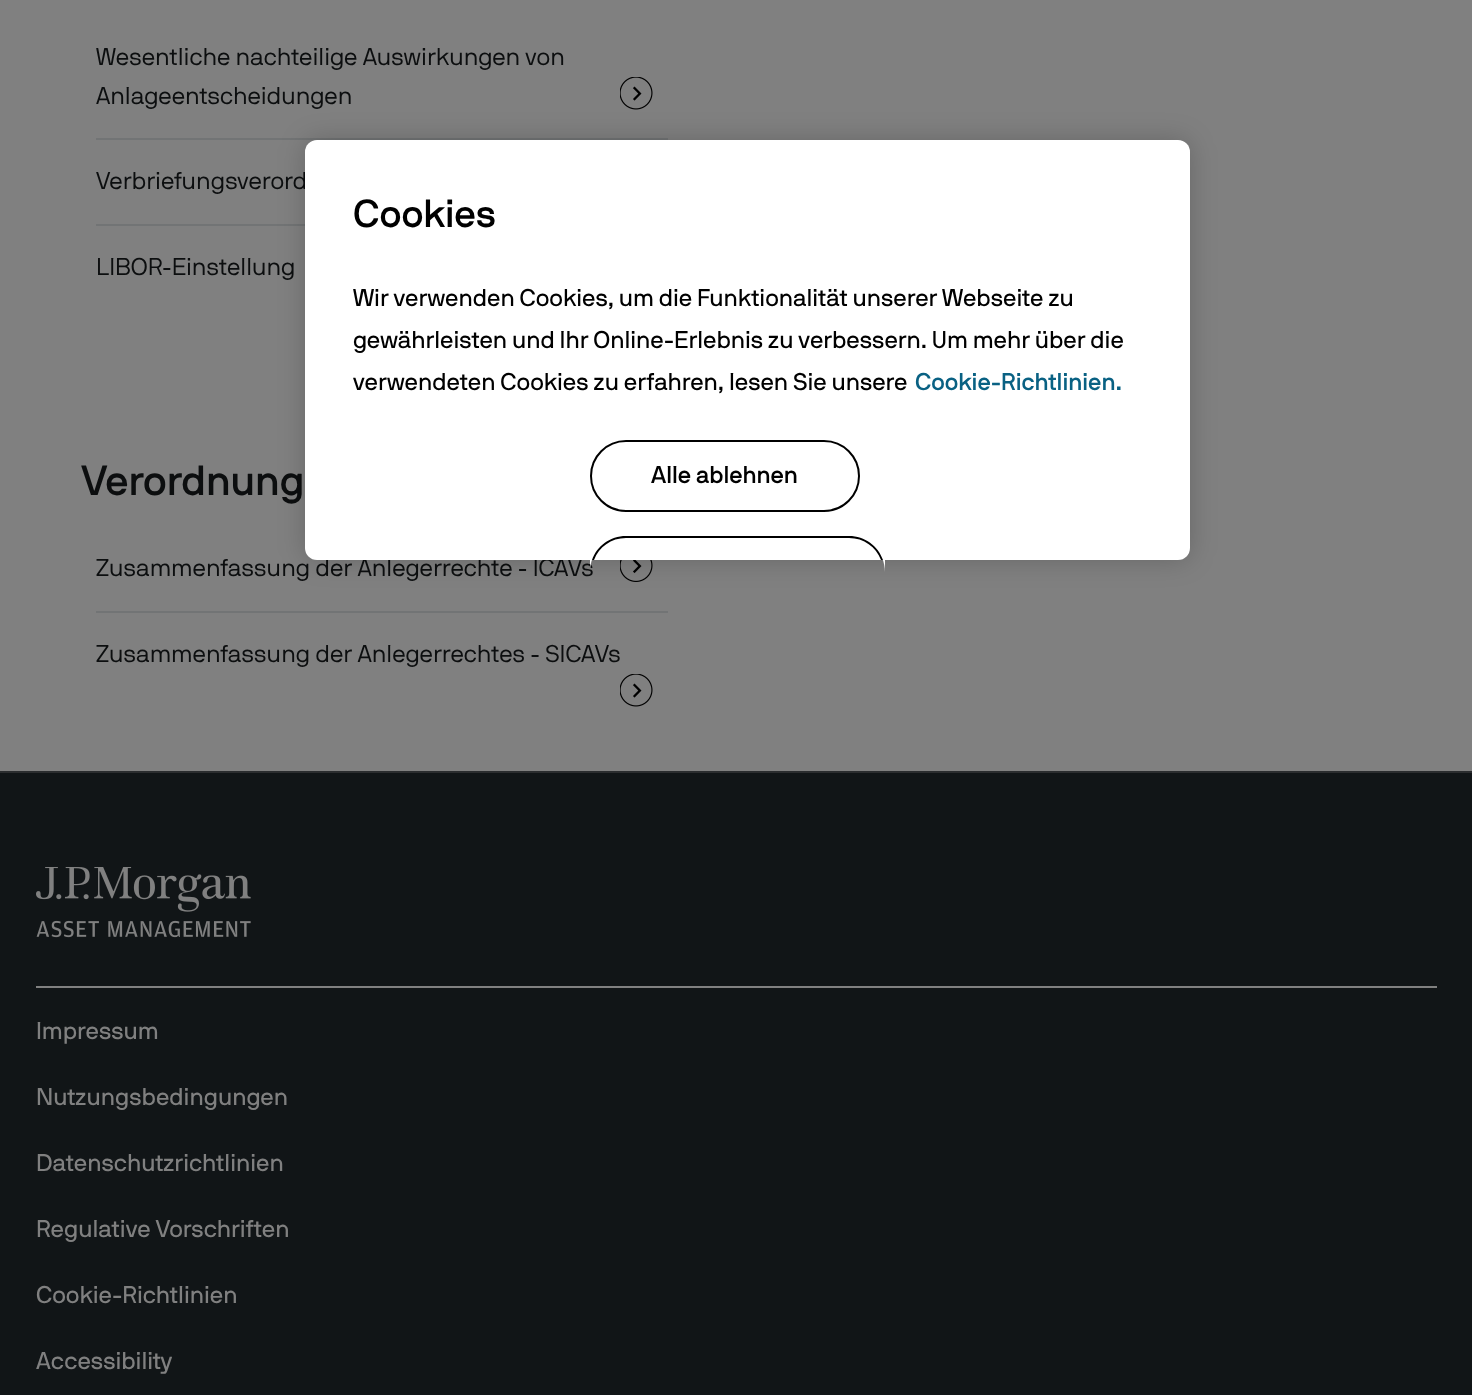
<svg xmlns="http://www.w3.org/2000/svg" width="1472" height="1395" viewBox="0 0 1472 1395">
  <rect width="100%" height="100%" fill="rgb(128,128,128)"/>
  <rect x="96" y="138" width="572" height="2" fill="rgb(114,116,117)"/>
  <g font-family="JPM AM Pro" font-size="24" fill="rgb(12,14,15)">
    <text>
      <tspan x="96" y="65">Wesentliche nachteilige Auswirkungen von</tspan>
      <tspan x="96" y="104">Anlageentscheidungen</tspan>
    </text>
  </g>
  <image x="620" y="77" width="33" height="33" href="pic1.png"/>
  <rect x="96" y="224" width="209" height="2" fill="rgb(114,116,117)"/>
  <g font-family="JPM AM Pro" font-size="24" fill="rgb(12,14,15)">
    <text x="96" y="189">Verbriefungsverord</text>
    <text x="96" y="275">LIBOR-Einstellung</text>
  </g>
  <text x="81" y="495" font-family="JPM AM Pro" font-size="42" font-weight="500" fill="rgb(12,14,15)">Verordnung</text>
  <rect x="96" y="611" width="572" height="2" fill="rgb(114,116,117)"/>
  <text x="96" y="576" font-family="JPM AM Pro" font-size="24" fill="rgb(12,14,15)">Zusammenfassung der Anlegerrechte - ICAVs</text>
  <image x="620" y="560" width="33" height="22" href="pic2.png"/>
  <text x="96" y="662" font-family="JPM AM Pro" font-size="24" fill="rgb(12,14,15)">Zusammenfassung der Anlegerrechtes - SICAVs</text>
  <image x="620" y="674" width="33" height="33" href="pic1.png"/>
  <rect x="0" y="773" width="1472" height="622" fill="rgb(17,21,23)"/>
  <rect x="0" y="771" width="1472" height="2" fill="rgb(43,45,47)"/>
  <image x="36" y="867" width="215" height="71" href="pic3.png"/>
  <rect x="36" y="986" width="1401" height="2" fill="rgb(128,128,128)"/>
  <g font-family="'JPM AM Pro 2'" font-size="24" fill="rgb(128,128,128)">
    <text x="36" y="1039">Impressum</text>
    <text x="36" y="1105">Nutzungsbedingungen</text>
    <text x="36" y="1171">Datenschutzrichtlinien</text>
    <text x="36" y="1237">Regulative Vorschriften</text>
    <text x="36" y="1303">Cookie-Richtlinien</text>
    <text x="36" y="1369">Accessibility</text>
  </g>
  <rect x="305" y="140" width="885" height="420" rx="12" fill="rgba(0,0,0,0.2)" filter="blur(13.5px)"/>
  <rect x="305" y="140" width="885" height="420" rx="12" fill="rgb(255,255,255)"/>
  <text x="353" y="227" font-family="JPM AM Pro" font-size="39" font-weight="500" fill="rgb(0,0,0)">Cookies</text>
  <g font-family="'JPM AM Pro 2'" font-size="24" fill="rgb(0,0,0)">
    <text>
      <tspan x="353" y="306">Wir verwenden Cookies, um die Funktionalität unserer Webseite zu</tspan>
      <tspan x="353" y="348">gewährleisten und Ihr Online-Erlebnis zu verbessern. Um mehr über die</tspan>
      <tspan x="353" y="390">verwendeten Cookies zu erfahren, lesen Sie unsere</tspan>
    </text>
  </g>
  <text x="915" y="390" font-family="JPM AM Pro" font-size="24" font-weight="500" fill="rgb(9,97,131)">Cookie-Richtlinien.</text>
  <rect x="591" y="441" width="268" height="70" rx="35" fill="none" stroke="rgb(0,0,0)" stroke-width="2"/>
  <text x="651" y="483" font-family="JPM AM Pro" font-size="24" font-weight="500" fill="rgb(0,0,0)">Alle ablehnen</text>
  <path d="M626 536H849C869 536 885 552 885 572V560H590V572C590 552 606 536 626 536Z" fill="rgb(255,255,255)"/>
  <path d="M626 536C610 536 597 546 592 560H594C599 547 611 538 626 538H849C864 538 876 547 881 560H883C878 546 865 536 849 536Z" fill="rgb(0,0,0)"/>
</svg>
